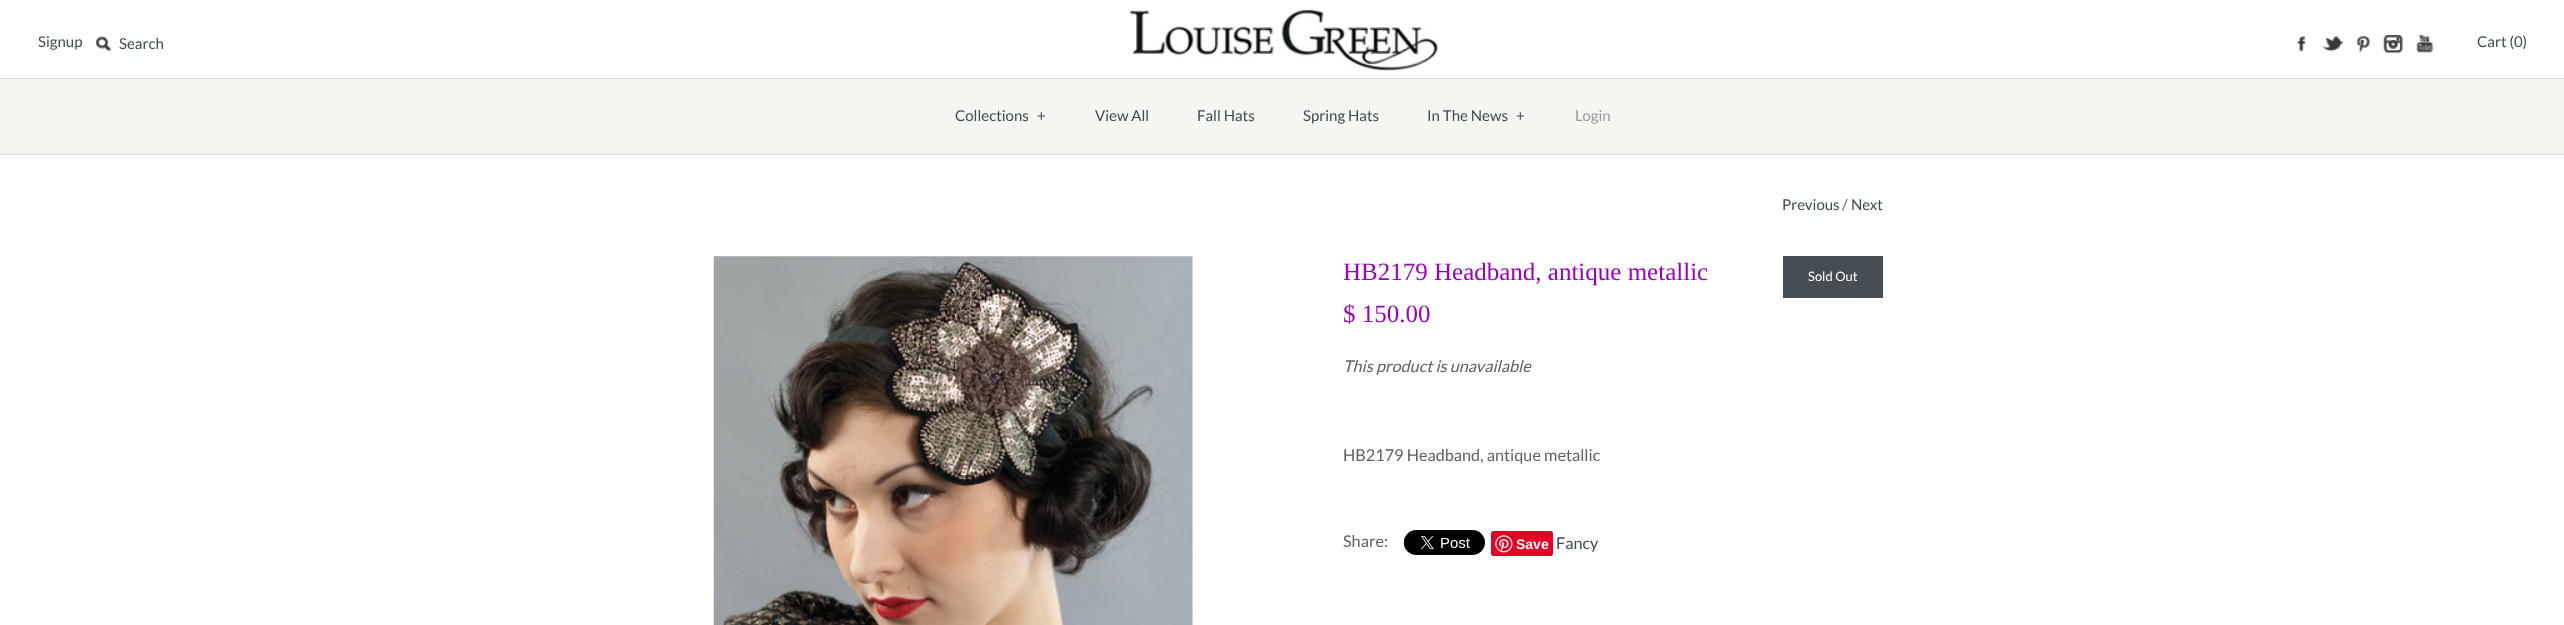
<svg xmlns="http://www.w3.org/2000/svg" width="2564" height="625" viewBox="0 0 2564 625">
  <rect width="100%" height="100%" fill="rgb(255,255,255)"/>
  <image x="1129" y="9" width="309" height="62" href="pic1.png"/>
  <text x="38" y="47" font-family="Lato" font-size="15" fill="rgb(61,76,79)">Signup</text>
  <image x="96" y="36" width="16" height="16" href="pic2.png"/>
  <text x="119" y="49" font-family="Lato" font-size="15" fill="rgb(61,76,79)">Search</text>
  <image x="2297" y="36" width="9" height="16" href="pic3.png"/>
  <image x="2322" y="36" width="22" height="16" href="pic4.png"/>
  <image x="2356" y="36" width="15" height="17" href="pic5.png"/>
  <image x="2383" y="34" width="20" height="19" href="pic6.png"/>
  <image x="2416" y="34" width="17" height="19" href="pic7.png"/>
  <text x="2477" y="47" font-family="Lato" font-size="15" fill="rgb(61,76,79)">Cart (0)</text>
  <rect x="0" y="154" width="2564" height="1" fill="rgb(217,217,210)"/>
  <rect x="0" y="79" width="2564" height="75" fill="rgb(245,245,242)"/>
  <rect x="0" y="78" width="2564" height="1" fill="rgb(217,217,212)"/>
  <g font-family="Lato" font-size="15" fill="rgb(61,76,79)">
    <text x="955" y="121">Collections</text>
    <text x="1037" y="121">+</text>
    <text x="1095" y="121">View All</text>
    <text x="1197" y="121">Fall Hats</text>
    <text x="1303" y="121">Spring Hats</text>
    <text x="1427" y="121">In The News</text>
    <text x="1516" y="121">+</text>
  </g>
  <text x="1575" y="121" font-family="Lato" font-size="15" fill="rgb(153,153,153)">Login</text>
  <text x="1782" y="210" font-family="Lato" font-size="15" fill="rgb(61,76,79)">Previous</text>
  <text x="1842" y="210" font-family="Lato" font-size="15" fill="rgb(92,97,102)">/</text>
  <text x="1851" y="210" font-family="Lato" font-size="15" fill="rgb(61,76,79)">Next</text>
  <image x="713" y="256" width="480" height="369" href="pic8.png"/>
  <text x="1343" y="280" font-family="Liberation Serif" font-size="25" fill="rgb(152,2,189)">HB2179 Headband, antique metallic</text>
  <rect x="1783" y="256" width="100" height="42" fill="rgb(70,78,84)"/>
  <text x="1808" y="281" font-family="Lato" font-size="13" fill="rgb(255,255,255)">Sold Out</text>
  <text x="1343" y="322" font-family="Liberation Serif" font-size="25" fill="rgb(152,2,189)">$ 150.00</text>
  <text x="1343" y="372" font-family="Lato" font-size="16.25" font-style="italic" fill="rgb(92,97,102)">This product is unavailable</text>
  <g font-family="Lato" font-size="16.25" fill="rgb(92,97,102)">
    <text x="1343" y="461">HB2179 Headband, antique metallic</text>
    <text x="1343" y="547">Share:</text>
  </g>
  <image x="1403" y="530" width="82" height="25" href="pic9.png"/>
  <rect x="1491" y="531" width="62" height="25" rx="2.5" fill="rgb(230,0,35)"/>
  <image x="1495" y="535" width="18" height="18" href="pic10.png"/>
  <text x="1516" y="549" font-family="Liberation Sans" font-size="14" font-weight="bold" fill="rgb(255,255,255)">Save</text>
  <text x="1556" y="549" font-family="Lato" font-size="16.25" fill="rgb(61,76,79)">Fancy</text>
</svg>
